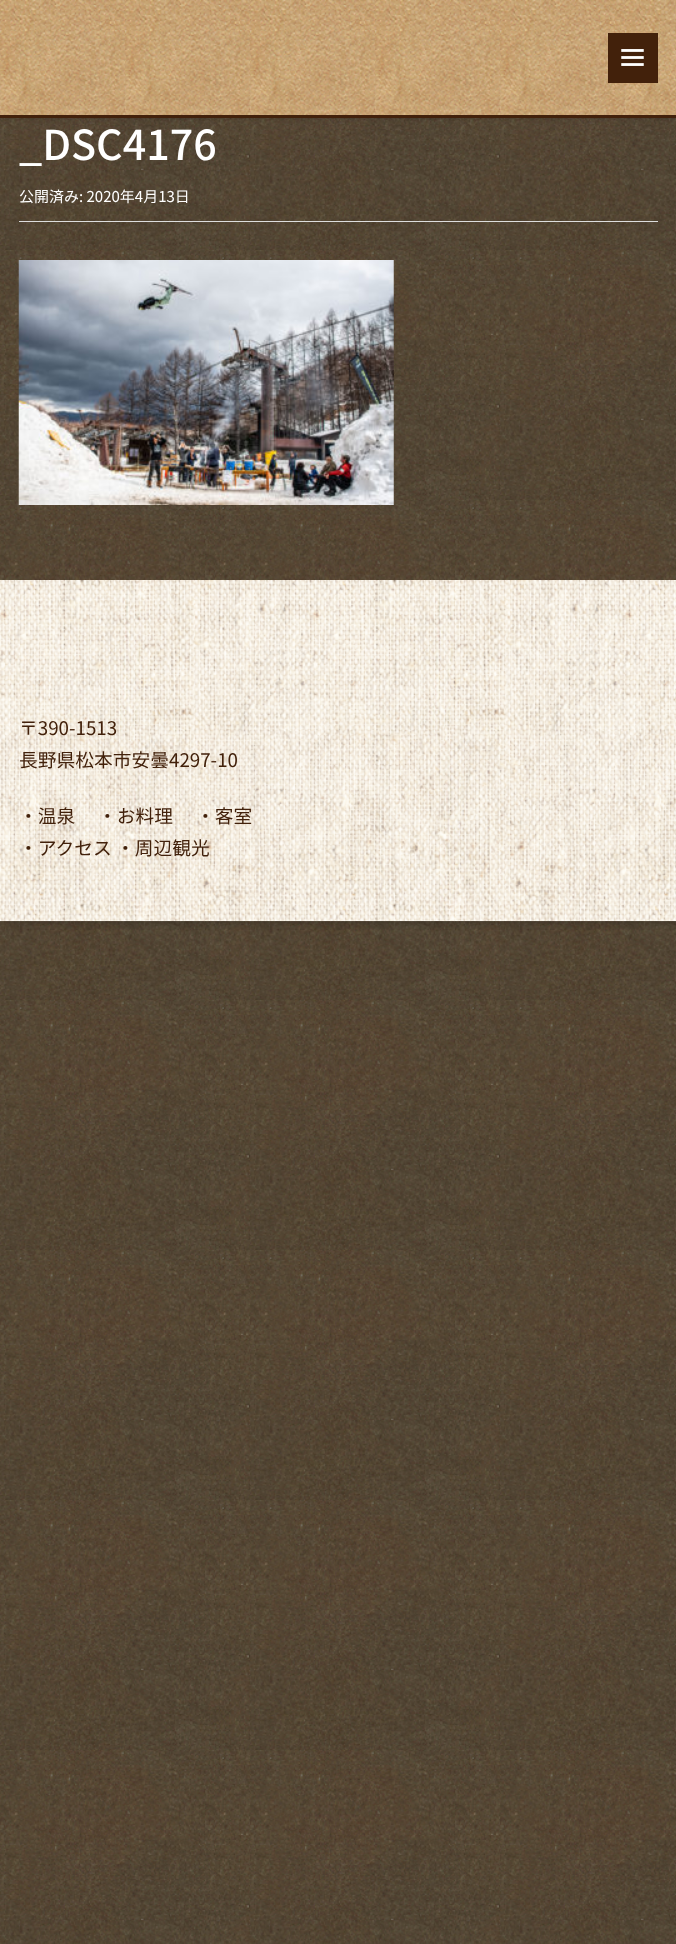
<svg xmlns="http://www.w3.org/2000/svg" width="676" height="1944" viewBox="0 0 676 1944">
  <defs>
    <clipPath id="clip1"><rect x="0" y="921" width="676" height="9"/></clipPath>
  </defs>
  <rect width="100%" height="100%" fill="rgb(255,255,255)"/>
  <image x="0" y="118" width="676" height="1826" href="pic1.png"/>
  <g clip-path="url(#clip1)">
    <rect x="4" y="0" width="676" height="921" fill="rgba(0,0,0,0.3)" filter="blur(6px)"/>
  </g>
  <rect x="0" y="0" width="676" height="118" fill="rgba(0,0,0,0.2)" filter="blur(2px)"/>
  <image x="0" y="0" width="676" height="115" href="pic2.png"/>
  <rect x="0" y="115" width="676" height="3" fill="rgb(66,33,11)"/>
  <rect x="608" y="33" width="50" height="50" fill="rgb(66,33,11)"/>
  <image x="621" y="49" width="23" height="17" href="pic3.png"/>
  <text x="19" y="160" font-family="Noto Sans JP" font-size="41.25" font-weight="500" fill="rgb(255,255,255)">_DSC4176</text>
  <rect x="19" y="221" width="639" height="1" fill="rgb(221,221,221)"/>
  <text x="19" y="202" font-family="Noto Sans JP" font-size="15" fill="rgb(255,255,255)">公開済み: 2020年4月13日</text>
  <image x="18" y="260" width="376" height="245" href="pic4.png"/>
  <image x="0" y="580" width="676" height="342" href="pic5.png"/>
  <g font-family="Noto Sans JP" font-size="18.75" fill="rgb(66,33,11)">
    <text>
      <tspan x="19" y="735">〒390-1513</tspan>
      <tspan x="19" y="767">長野県松本市安曇4297-10</tspan>
    </text>
    <text x="19" y="823">・温泉</text>
    <text x="98" y="823">・お料理</text>
    <text x="196" y="823">・客室</text>
    <text x="19" y="855">・アクセス ・周辺観光</text>
  </g>
</svg>
